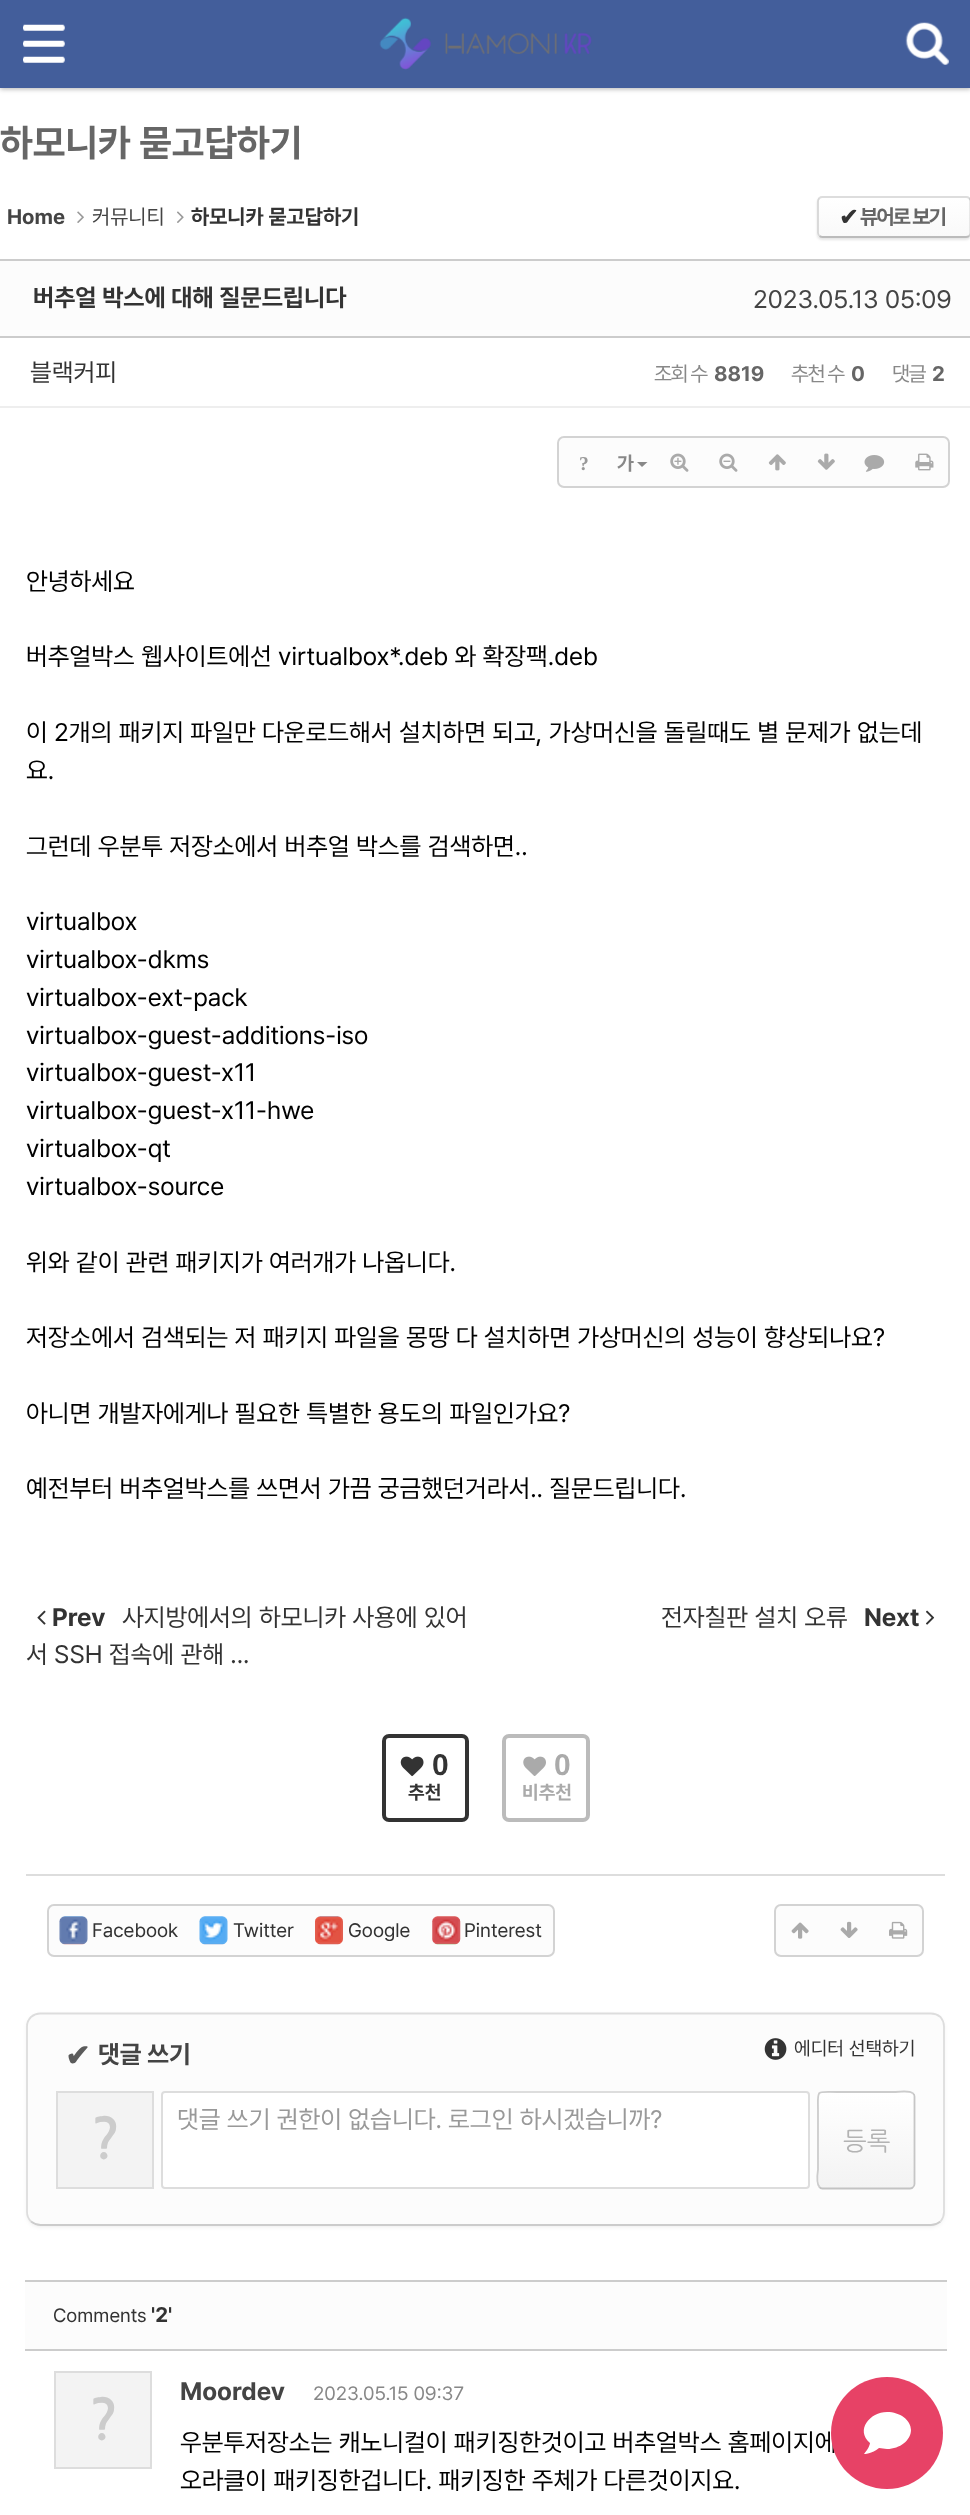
<svg xmlns="http://www.w3.org/2000/svg" width="970" height="2515" viewBox="0 0 970 2515">
  <defs>
    <clipPath id="clip1"><rect x="817" y="196" width="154" height="42" rx="5"/></clipPath>
    <linearGradient id="g1" gradientUnits="userSpaceOnUse" x1="894" y1="159" x2="894" y2="198"><stop offset="0" stop-color="rgb(255,255,255)"/><stop offset="1" stop-color="rgb(249,249,249)"/></linearGradient>
    <linearGradient id="g2" gradientUnits="userSpaceOnUse" x1="894" y1="198" x2="894" y2="236"><stop offset="0" stop-color="rgb(255,255,255)"/><stop offset="1" stop-color="rgb(249,249,249)"/></linearGradient>
    <linearGradient id="g3" gradientUnits="userSpaceOnUse" x1="894" y1="236" x2="894" y2="275"><stop offset="0" stop-color="rgb(255,255,255)"/><stop offset="1" stop-color="rgb(249,249,249)"/></linearGradient>
    <clipPath id="clip2"><rect x="817" y="2091" width="98" height="98" rx="5"/></clipPath>
    <linearGradient id="g4" gradientUnits="userSpaceOnUse" x1="866" y1="1999" x2="866" y2="2093"><stop offset="0" stop-color="rgb(255,255,255)"/><stop offset="1" stop-color="rgb(243,243,243)"/></linearGradient>
    <linearGradient id="g5" gradientUnits="userSpaceOnUse" x1="866" y1="2093" x2="866" y2="2188"><stop offset="0" stop-color="rgb(255,255,255)"/><stop offset="1" stop-color="rgb(243,243,243)"/></linearGradient>
  </defs>
  <rect width="100%" height="100%" fill="rgb(255,255,255)"/>
  <rect x="0" y="2" width="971" height="87" fill="rgba(0,0,0,0.3)" filter="blur(2.5px)"/>
  <rect x="0" y="0" width="970" height="88" fill="rgb(67,94,155)"/>
  <image x="23" y="24" width="42" height="39" href="pic1.png"/>
  <image x="379" y="17" width="213" height="53" href="pic2.png"/>
  <image x="905" y="22" width="44" height="43" href="pic3.png"/>
  <text x="0" y="156" font-family="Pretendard" font-size="37.75" font-weight="bold" fill="rgb(102,102,102)">하모니카 묻고답하기</text>
  <text x="7" y="224" font-family="Pretendard" font-size="21" font-weight="bold" fill="rgb(68,68,68)">Home</text>
  <image x="77" y="211" width="7" height="12" href="pic4.png"/>
  <text x="92" y="224" font-family="Pretendard" font-size="21" fill="rgb(68,68,68)">커뮤니티</text>
  <image x="177" y="211" width="7" height="12" href="pic5.png"/>
  <text x="191" y="224" font-family="Pretendard" font-size="21" font-weight="bold" fill="rgb(51,51,51)">하모니카 묻고답하기</text>
  <rect x="817" y="198" width="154" height="42" rx="5" fill="rgba(0,0,0,0.1)" filter="blur(1px)"/>
  <g clip-path="url(#clip1)">
    <rect x="817" y="196" width="153" height="2" fill="url(#g1)"/>
    <rect x="817" y="198" width="153" height="38" fill="url(#g2)"/>
    <rect x="817" y="236" width="153" height="2" fill="url(#g3)"/>
  </g>
  <path d="M819.5 198C820 197.5 821.5 197 822.5 197H966C967 197 968.5 197.5 969 198" fill="none" stroke="rgb(221,221,221)" stroke-width="1.8"/>
  <path d="M969 198C970 199 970.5 200 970.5 201V233C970.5 234 970 235 969 236" fill="none" stroke="rgb(204,204,204)" stroke-width="1.8"/>
  <path d="M969 236C968.5 236.5 967 237 966 237H822.5C821.5 237 820 236.5 819.5 236" fill="none" stroke="rgb(187,187,187)" stroke-width="1.8"/>
  <path d="M819.5 236C818.5 235 818 234 818 233V201C818 200 818.5 199 819.5 198" fill="none" stroke="rgb(214,214,214)" stroke-width="1.8"/>
  <text x="839" y="225" font-family="DejaVu Sans" font-size="23" font-weight="bold" letter-spacing="-1.75" fill="rgb(51,51,51)">✔</text>
  <text x="860" y="224" font-family="Pretendard" font-size="21" font-weight="bold" letter-spacing="-1.75" fill="rgb(102,102,102)">뷰어로 보기</text>
  <rect x="0" y="261" width="970" height="75" fill="rgb(252,252,252)"/>
  <rect x="0" y="259" width="970" height="2" fill="rgb(204,204,204)"/>
  <rect x="0" y="336" width="970" height="2" fill="rgb(204,204,204)"/>
  <text x="33" y="306" font-family="Pretendard" font-size="24.5" font-weight="bold" fill="rgb(51,51,51)">버추얼 박스에 대해 질문드립니다</text>
  <text x="753" y="308" font-family="Pretendard" font-size="25.2" fill="rgb(68,68,68)">2023.05.13 05:09</text>
  <rect x="0" y="406" width="970" height="2" fill="rgb(238,238,238)"/>
  <text x="30" y="381" font-family="Pretendard" font-size="25.2" fill="rgb(51,51,51)">블랙커피</text>
  <text x="654" y="381" font-family="Pretendard" font-size="21" letter-spacing="-1.75" fill="rgb(136,136,136)">조회 수</text>
  <text x="714" y="381" font-family="Pretendard" font-size="21" font-weight="bold" fill="rgb(102,102,102)">8819</text>
  <text x="791" y="381" font-family="Pretendard" font-size="21" letter-spacing="-1.75" fill="rgb(136,136,136)">추천 수</text>
  <text x="851" y="381" font-family="Pretendard" font-size="21" font-weight="bold" fill="rgb(102,102,102)">0</text>
  <text x="892" y="381" font-family="Pretendard" font-size="21" letter-spacing="-1.75" fill="rgb(136,136,136)">댓글</text>
  <text x="932" y="381" font-family="Pretendard" font-size="21" font-weight="bold" fill="rgb(102,102,102)">2</text>
  <rect x="558" y="437" width="391" height="50" rx="6" fill="rgb(252,252,252)" stroke="rgb(211,211,211)" stroke-width="2"/>
  <text x="579" y="470" font-family="Liberation Serif" font-size="19.5" font-weight="bold" letter-spacing="-1.75" fill="rgb(153,153,153)">?</text>
  <text x="617" y="470" font-family="Pretendard" font-size="19.5" font-weight="bold" letter-spacing="-1.75" fill="rgb(136,136,136)">가</text>
  <path d="M637 462H647.5L642 467Z" fill="rgb(136,136,136)"/>
  <image x="670" y="453" width="19" height="19" href="pic6.png"/>
  <image x="719" y="453" width="19" height="19" href="pic7.png"/>
  <image x="768" y="454" width="18" height="17" href="pic8.png"/>
  <image x="817" y="453" width="18" height="17" href="pic9.png"/>
  <image x="864" y="455" width="21" height="17" href="pic10.png"/>
  <image x="915" y="453" width="19" height="18" href="pic11.png"/>
  <g font-family="Pretendard" font-size="25.2" fill="rgb(0,0,0)">
    <text x="26" y="590">안녕하세요</text>
    <text x="26" y="665">버추얼박스 웹사이트에선 virtualbox*.deb 와 확장팩.deb</text>
    <text>
      <tspan x="26" y="741">이 2개의 패키지 파일만 다운로드해서 설치하면 되고, 가상머신을 돌릴때도 별 문제가 없는데</tspan>
      <tspan x="26" y="779">요.</tspan>
    </text>
    <text x="26" y="855">그런데 우분투 저장소에서 버추얼 박스를 검색하면..</text>
    <text>
      <tspan x="26" y="930">virtualbox</tspan>
      <tspan x="26" y="968">virtualbox-dkms</tspan>
      <tspan x="26" y="1006">virtualbox-ext-pack</tspan>
      <tspan x="26" y="1044">virtualbox-guest-additions-iso</tspan>
      <tspan x="26" y="1081">virtualbox-guest-x11</tspan>
      <tspan x="26" y="1119">virtualbox-guest-x11-hwe</tspan>
      <tspan x="26" y="1157">virtualbox-qt</tspan>
      <tspan x="26" y="1195">virtualbox-source</tspan>
    </text>
    <text x="26" y="1271">위와 같이 관련 패키지가 여러개가 나옵니다.</text>
    <text x="26" y="1346">저장소에서 검색되는 저 패키지 파일을 몽땅 다 설치하면 가상머신의 성능이 향상되나요?</text>
    <text x="26" y="1422">아니면 개발자에게나 필요한 특별한 용도의 파일인가요?</text>
    <text x="26" y="1497">예전부터 버추얼박스를 쓰면서 가끔 궁금했던거라서.. 질문드립니다.</text>
  </g>
  <image x="37" y="1610" width="9" height="15" href="pic12.png"/>
  <text x="52" y="1626" font-family="Pretendard" font-size="25.2" font-weight="bold" fill="rgb(51,51,51)">Prev</text>
  <g font-family="Pretendard" font-size="25.2" fill="rgb(51,51,51)">
    <text x="122" y="1626">사지방에서의 하모니카 사용에 있어</text>
    <text x="26" y="1663">서 SSH 접속에 관해 ...</text>
    <text x="661" y="1626">전자칠판 설치 오류</text>
  </g>
  <text x="864" y="1626" font-family="Pretendard" font-size="25.2" font-weight="bold" fill="rgb(51,51,51)">Next</text>
  <image x="926" y="1610" width="9" height="15" href="pic13.png"/>
  <rect x="384" y="1736" width="83" height="84" rx="5" fill="none" stroke="rgb(51,51,51)" stroke-width="4"/>
  <image x="400" y="1756" width="24" height="21" href="pic14.png"/>
  <text x="432" y="1775" font-family="Liberation Sans" font-size="30" font-weight="bold" fill="rgb(51,51,51)">0</text>
  <text x="408" y="1799" font-family="Pretendard" font-size="19.25" font-weight="bold" fill="rgb(51,51,51)">추천</text>
  <rect x="504" y="1736" width="84" height="84" rx="5" fill="none" stroke="rgb(187,187,187)" stroke-width="4"/>
  <image x="523" y="1756" width="23" height="20" href="pic15.png"/>
  <text x="554" y="1775" font-family="Liberation Sans" font-size="30" font-weight="bold" fill="rgb(170,170,170)">0</text>
  <text x="522" y="1799" font-family="Pretendard" font-size="19.25" font-weight="bold" fill="rgb(170,170,170)">비추천</text>
  <rect x="26" y="1874" width="919" height="2" fill="rgb(221,221,221)"/>
  <rect x="48" y="1905" width="506" height="51" rx="6" fill="rgb(252,252,252)" stroke="rgb(211,211,211)" stroke-width="2"/>
  <image x="59" y="1916" width="29" height="29" href="pic16.png"/>
  <text x="92" y="1937" font-family="Pretendard" font-size="19.5" fill="rgb(51,51,51)">Facebook</text>
  <image x="199" y="1916" width="29" height="29" href="pic17.png"/>
  <text x="233" y="1937" font-family="Pretendard" font-size="19.5" fill="rgb(51,51,51)">Twitter</text>
  <image x="315" y="1916" width="28" height="29" href="pic18.png"/>
  <text x="348" y="1937" font-family="Pretendard" font-size="19.5" fill="rgb(51,51,51)">Google</text>
  <image x="432" y="1916" width="29" height="29" href="pic19.png"/>
  <text x="464" y="1937" font-family="Pretendard" font-size="19.5" fill="rgb(51,51,51)">Pinterest</text>
  <rect x="775" y="1905" width="148" height="51" rx="6" fill="rgb(252,252,252)" stroke="rgb(211,211,211)" stroke-width="2"/>
  <image x="791" y="1922" width="18" height="17" href="pic20.png"/>
  <image x="840" y="1921" width="18" height="17" href="pic21.png"/>
  <image x="889" y="1921" width="19" height="18" href="pic22.png"/>
  <rect x="28" y="2016" width="915" height="210" rx="12" fill="rgba(0,0,0,0.1)" filter="blur(2.5px)"/>
  <rect x="26" y="2013" width="919" height="213" rx="14" fill="rgb(252,252,252)"/>
  <path d="M940.5 2221.5C938 2223.5 934.5 2225 931 2225H40.5C37 2225 33.5 2223.5 31 2221.5" fill="none" stroke="rgb(204,204,204)" stroke-width="1.8"/>
  <path d="M31 2221.5C28.5 2219 27 2215.5 27 2212V2026.5C27 2023 28.5 2019.5 31 2017C33.5 2015 37 2013.5 40 2013.5H931C934.5 2013.5 938 2015 940.5 2017C942.5 2019.5 944 2023 944 2026.5V2212C944 2215.5 942.5 2219 940.5 2221.5" fill="none" stroke="rgb(221,221,221)" stroke-width="1.8"/>
  <text x="65" y="2066" font-family="DejaVu Sans" font-size="30" font-weight="bold" fill="rgb(91,91,91)">✔</text>
  <text x="98" y="2063" font-family="Pretendard" font-size="25.2" font-weight="bold" fill="rgb(68,68,68)">댓글 쓰기</text>
  <image x="764" y="2038" width="23" height="22" href="pic23.png"/>
  <text x="794" y="2055" font-family="Pretendard" font-size="19.25" fill="rgb(51,51,51)">에디터 선택하기</text>
  <rect x="57" y="2092" width="96" height="96" fill="rgb(243,243,243)" stroke="rgb(221,221,221)" stroke-width="2"/>
  <text x="90" y="2159" font-family="NanumGothic" font-size="56" font-weight="bold" fill="rgb(204,204,204)">?</text>
  <rect x="162" y="2092" width="647" height="96" rx="3" fill="rgb(255,255,255)" stroke="rgb(221,221,221)" stroke-width="2"/>
  <text x="177" y="2128" font-family="Pretendard" font-size="25.2" fill="rgb(153,153,153)">댓글 쓰기 권한이 없습니다. 로그인 하시겠습니까?</text>
  <g clip-path="url(#clip2)">
    <rect x="817" y="2091" width="98" height="2" fill="url(#g4)"/>
    <rect x="817" y="2093" width="98" height="95" fill="url(#g5)"/>
  </g>
  <path d="M913 2093.5C914 2094 914.5 2095.5 914.5 2096.5V2184C914.5 2185 914 2186.5 913 2187" fill="none" stroke="rgb(198,198,198)" stroke-width="1.8"/>
  <path d="M913 2187C912.5 2188 911 2188.5 910 2188.5H822.5C821.5 2188.5 820 2188 819.5 2187" fill="none" stroke="rgb(195,195,195)" stroke-width="1.8"/>
  <path d="M819.5 2187C816 2183.5 818 2169.5 818 2169.5V2111C818 2089 815 2092 837 2092H895.5C895.5 2092 909.5 2090 913 2093.5" fill="none" stroke="rgb(204,204,204)" stroke-width="1.8"/>
  <text x="843" y="2150" font-family="NanumGothic" font-size="25.2" fill="rgb(179,179,179)">등록</text>
  <rect x="25" y="2282" width="922" height="67" fill="rgb(252,252,252)"/>
  <rect x="25" y="2280" width="922" height="2" fill="rgb(204,204,204)"/>
  <rect x="25" y="2349" width="922" height="2" fill="rgb(204,204,204)"/>
  <text x="53" y="2322" font-family="Pretendard" font-size="19.25" fill="rgb(51,51,51)">Comments</text>
  <text x="151" y="2322" font-family="Pretendard" font-size="21" font-weight="bold" fill="rgb(51,51,51)">'2'</text>
  <text x="180" y="2400" font-family="Pretendard" font-size="25.2" font-weight="bold" fill="rgb(68,68,68)">Moordev</text>
  <text x="313" y="2400" font-family="Pretendard" font-size="19.25" fill="rgb(136,136,136)">2023.05.15 09:37</text>
  <rect x="55" y="2372" width="96" height="96" fill="rgb(243,243,243)" stroke="rgb(221,221,221)" stroke-width="2"/>
  <text x="88" y="2440" font-family="NanumGothic" font-size="56" font-weight="bold" fill="rgb(204,204,204)">?</text>
  <g font-family="Pretendard" font-size="25.2" fill="rgb(0,0,0)">
    <text>
      <tspan x="180" y="2451">우분투저장소는 캐노니컬이 패키징한것이고 버추얼박스 홈페이지에</tspan>
      <tspan x="180" y="2489">오라클이 패키징한겁니다. 패키징한 주체가 다른것이지요.</tspan>
    </text>
  </g>
  <circle cx="887" cy="2433" r="56" fill="rgb(231,66,102)"/>
  <path d="M887 2412C900 2412 911 2420 911 2430C911 2440 900 2449 887 2449C884 2449 882 2448 879 2448C872 2454 864 2454 864 2454C869 2448 870 2444 870 2443C855 2430 870 2412 887 2412" fill="rgb(255,255,255)"/>
</svg>
